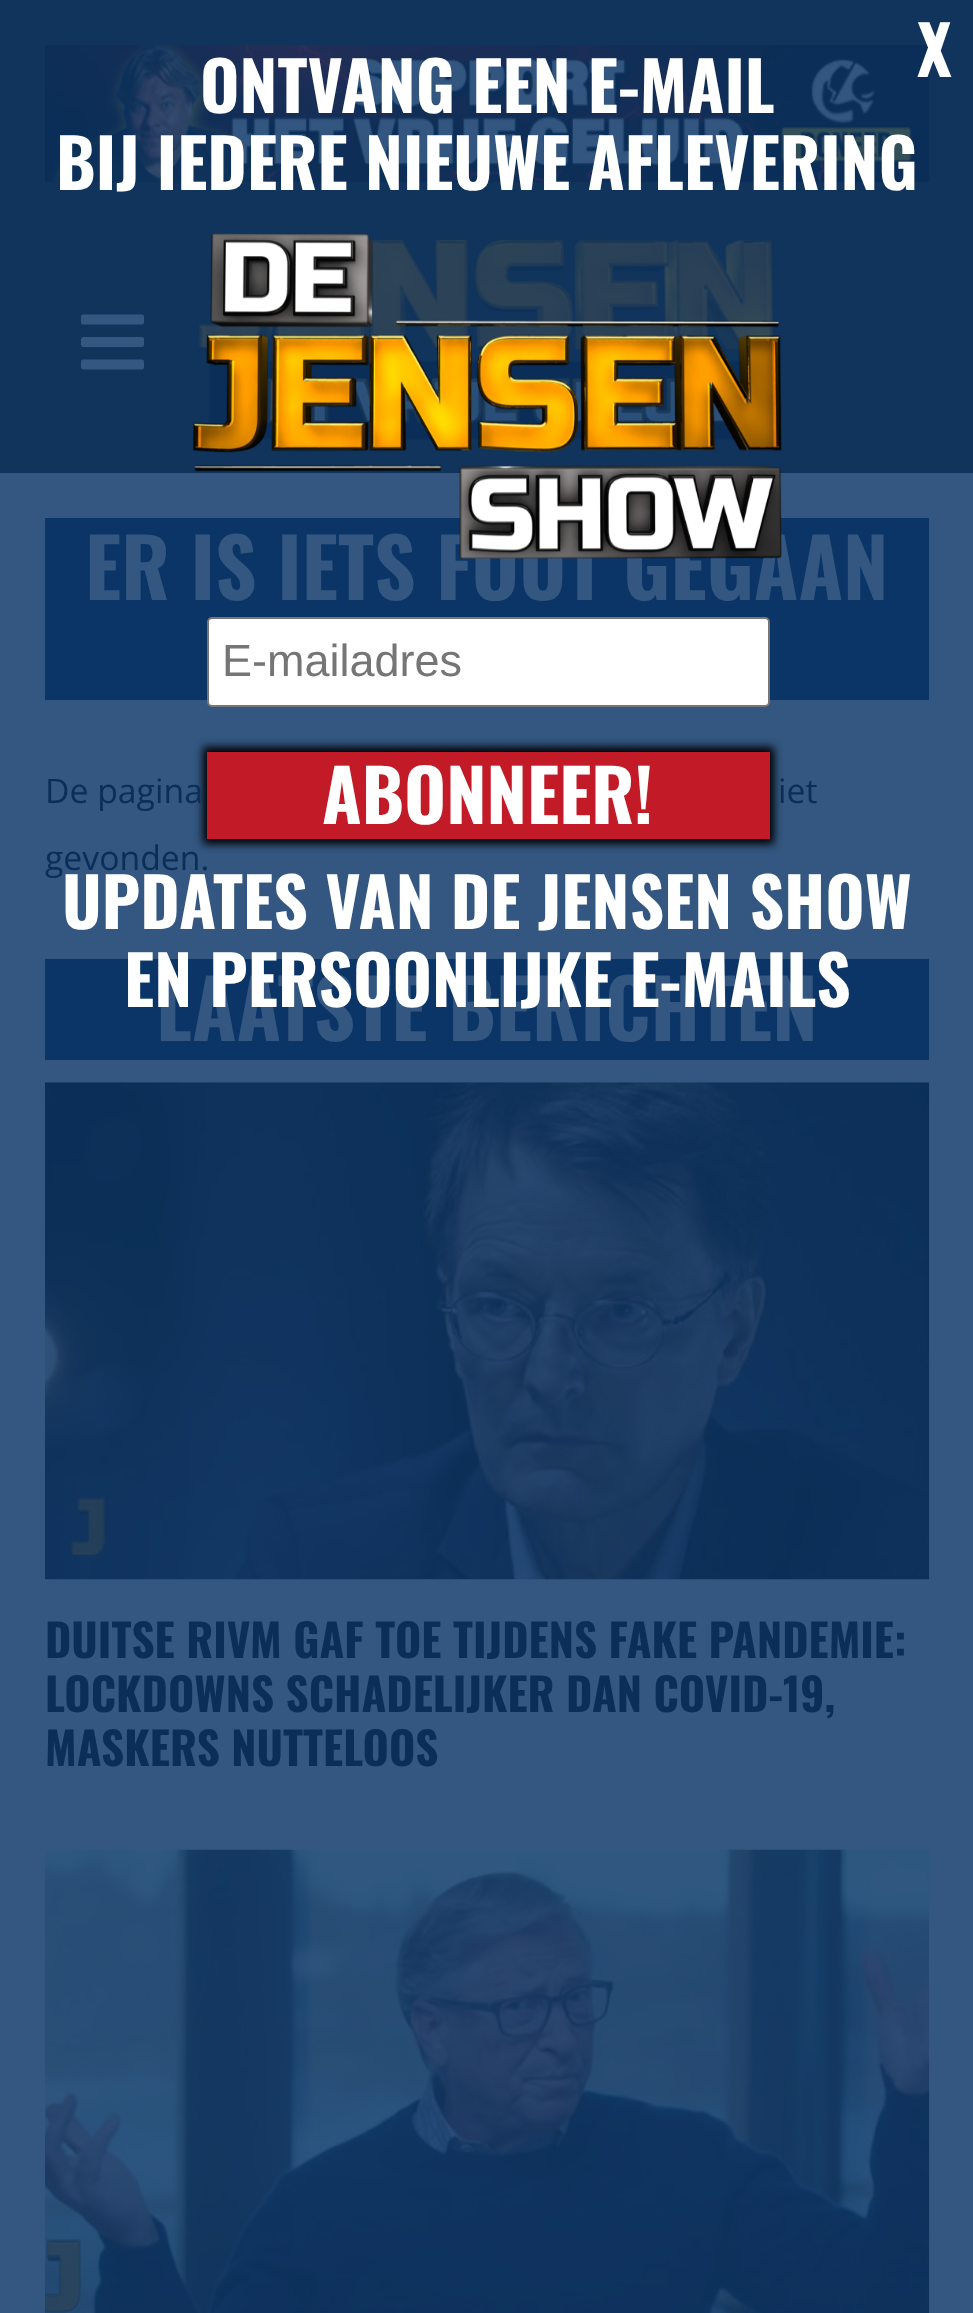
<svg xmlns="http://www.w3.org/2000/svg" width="973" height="2313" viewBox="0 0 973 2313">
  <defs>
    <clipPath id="clip1"><path d="M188 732H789V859H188ZM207 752H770V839H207Z" clip-rule="evenodd"/></clipPath>
  </defs>
  <rect width="100%" height="100%" fill="rgb(16,52,92)"/>
  <image x="45" y="45" width="885" height="138" href="pic2.png"/>
  <g font-family="Oswald" font-size="67.5" font-weight="bold" fill="rgb(255,255,255)">
    <text x="917" y="77">X</text>
    <text x="200" y="113">ONTVANG EEN E-MAIL</text>
    <text x="56" y="190">BIJ IEDERE NIEUWE AFLEVERING</text>
  </g>
  <image x="197" y="239" width="578" height="201" href="pic4.png"/>
  <rect x="0" y="473" width="973" height="1840" fill="rgb(51,87,128)"/>
  <rect x="45" y="518" width="884" height="182" fill="rgb(10,53,102)"/>
  <text x="85" y="600" font-family="Oswald" font-size="81" font-weight="bold" fill="rgb(51,87,128)">ER IS IETS FOUT GEGAAN</text>
  <image x="193" y="233" width="589" height="326" href="pic1.png"/>
  <rect x="208" y="618" width="561" height="88" rx="4" fill="rgb(255,255,255)" stroke="rgb(118,118,118)" stroke-width="2"/>
  <text x="222" y="676" font-family="Liberation Sans" font-size="45" fill="rgb(117,117,117)">E-mailadres</text>
  <g clip-path="url(#clip1)">
    <rect x="203" y="747" width="571" height="97" fill="rgb(0,0,0)" filter="blur(4.5px)"/>
  </g>
  <rect x="207" y="752" width="563" height="87" fill="rgba(255,0,0,0.7)"/>
  <text x="322" y="824" font-family="Oswald" font-size="72" font-weight="bold" fill="rgb(255,255,255)">ABONNEER!</text>
  <text x="62" y="929" font-family="Oswald" font-size="67.5" font-weight="bold" fill="rgb(255,255,255)">UPDATES VAN DE JENSEN SHOW</text>
  <rect x="45" y="959" width="884" height="101" fill="rgb(10,53,102)"/>
  <text x="156" y="1041" font-family="Oswald" font-size="81" font-weight="bold" fill="rgb(51,87,128)">LAATSTE BERICHTEN</text>
  <text x="124" y="1007" font-family="Oswald" font-size="67.5" font-weight="bold" fill="rgb(255,255,255)">EN PERSOONLIJKE E-MAILS</text>
  <image x="81" y="314" width="63" height="56" href="pic3.png"/>
  <g font-family="Open Sans" font-size="33.75" fill="rgb(10,46,87)">
    <text x="45" y="803">De pagina</text>
    <text x="778" y="803">iet</text>
    <text x="45" y="870">gevonden.</text>
  </g>
  <image x="45" y="1082" width="885" height="498" href="pic5.png"/>
  <g font-family="Oswald" font-size="45" font-weight="bold" fill="rgb(10,46,87)">
    <text>
      <tspan x="45" y="1658">DUITSE RIVM GAF TOE TIJDENS FAKE PANDEMIE:</tspan>
      <tspan x="45" y="1712">LOCKDOWNS SCHADELIJKER DAN COVID-19,</tspan>
      <tspan x="45" y="1766">MASKERS NUTTELOOS</tspan>
    </text>
  </g>
  <image x="45" y="1849" width="885" height="464" href="pic6.png"/>
</svg>
